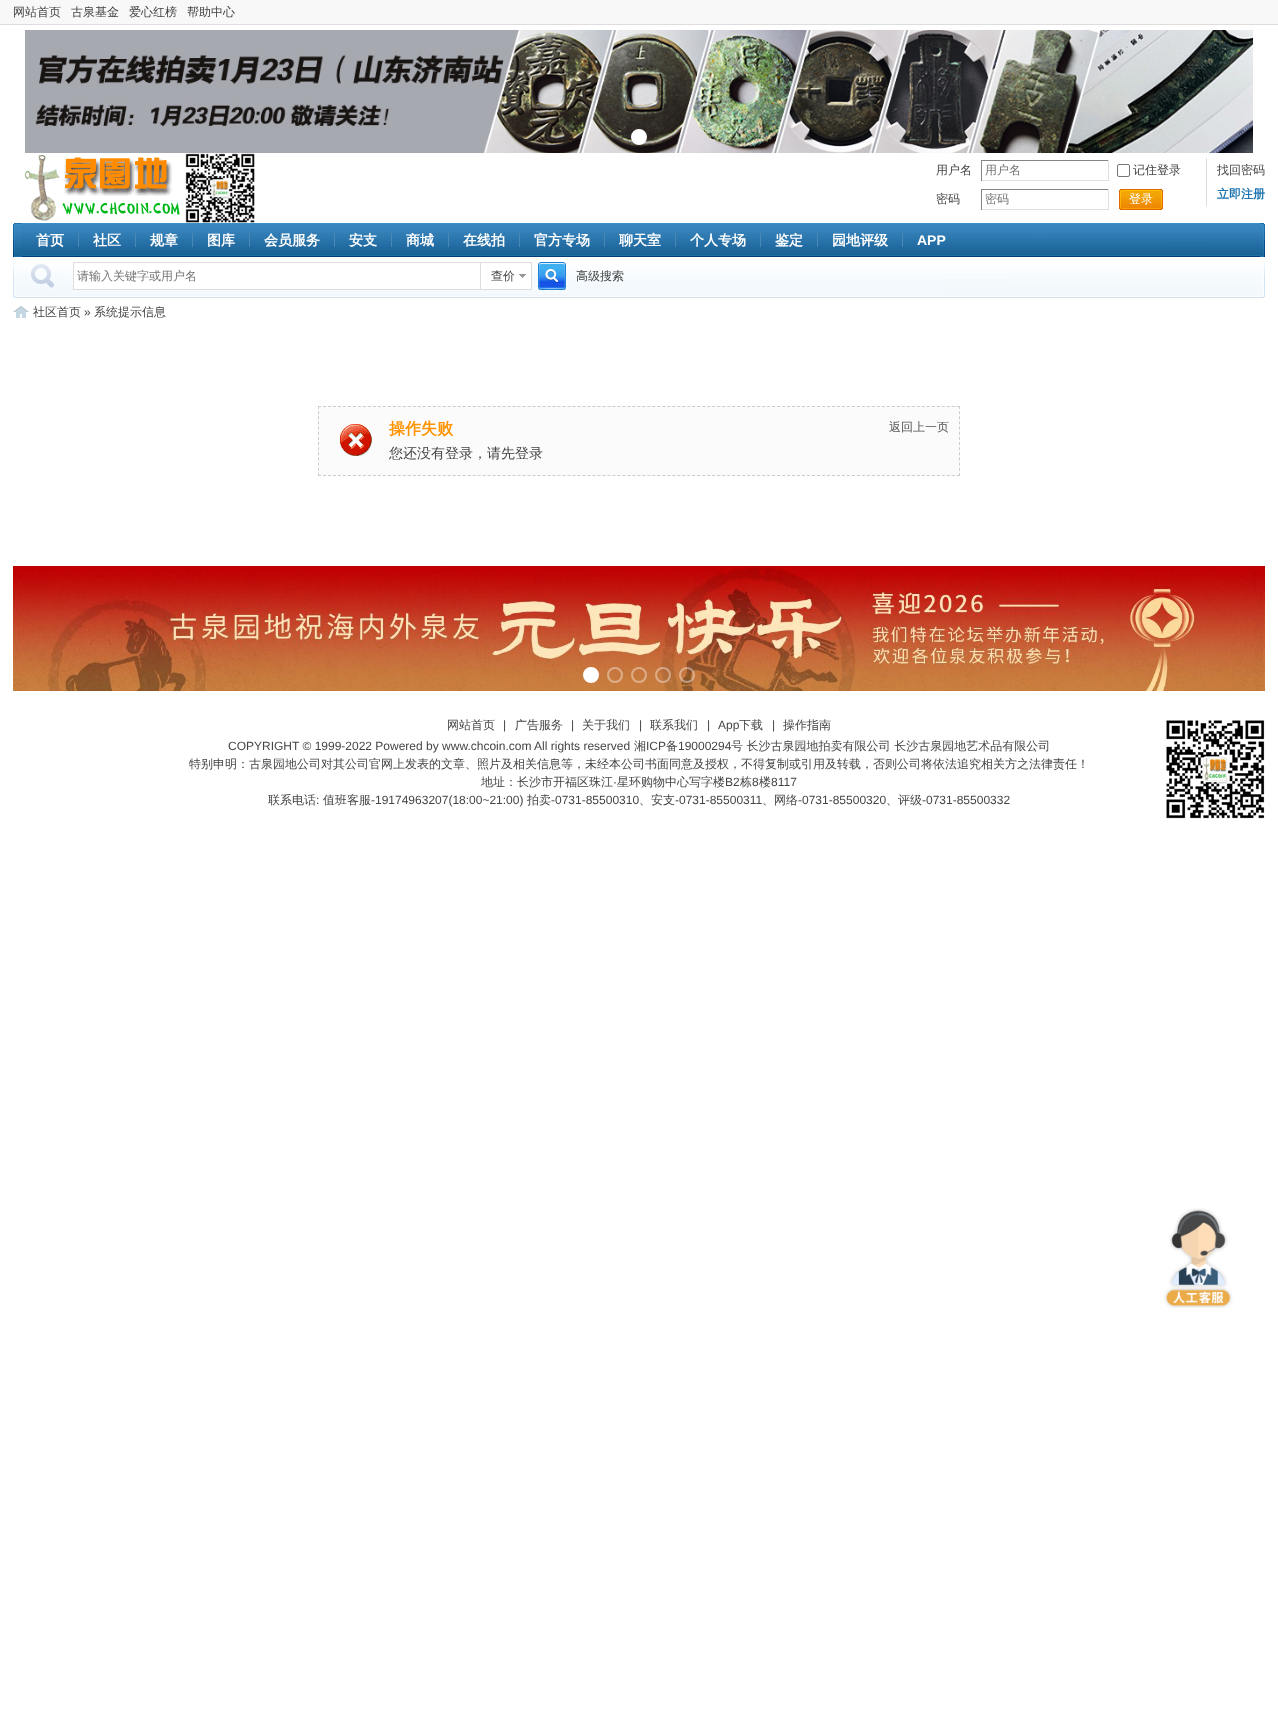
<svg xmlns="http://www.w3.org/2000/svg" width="1278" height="1725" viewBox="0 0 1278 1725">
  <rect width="100%" height="100%" fill="rgb(255,255,255)"/>
  <rect x="0" y="0" width="1278" height="24" fill="rgb(249,248,248)"/>
  <rect x="0" y="24" width="1278" height="1" fill="rgb(221,221,221)"/>
  <g font-family="WenQuanYi Zen Hei" font-size="12" font-weight="500" fill="rgb(68,68,68)">
    <text x="13" y="16">网站首页</text>
    <text x="71" y="16">古泉基金</text>
    <text x="129" y="16">爱心红榜</text>
    <text x="187" y="16">帮助中心</text>
  </g>
  <image x="25" y="30" width="1228" height="123" href="pic1.png"/>
  <circle cx="639" cy="137" r="7" fill="rgb(255,255,255)" stroke="rgb(255,255,255)" stroke-width="2"/>
  <image x="24" y="154" width="156" height="67" href="pic2.png"/>
  <image x="185" y="153" width="70" height="70" href="pic3.png"/>
  <text x="936" y="174" font-family="WenQuanYi Zen Hei" font-size="12" font-weight="500" fill="rgb(68,68,68)">用户名</text>
  <rect x="981" y="160" width="128" height="1" fill="rgb(132,132,132)"/>
  <rect x="1108" y="160" width="1" height="21" fill="rgb(224,224,224)"/>
  <rect x="981" y="180" width="128" height="1" fill="rgb(224,224,224)"/>
  <rect x="981" y="160" width="1" height="21" fill="rgb(132,132,132)"/>
  <text x="985" y="174" font-family="WenQuanYi Zen Hei" font-size="12" font-weight="500" fill="rgb(117,117,117)">用户名</text>
  <rect x="1117.5" y="164.5" width="12" height="12" rx="1.5" fill="none" stroke="rgb(118,118,118)"/>
  <g font-family="WenQuanYi Zen Hei" font-size="12" font-weight="500" fill="rgb(68,68,68)">
    <text x="1133" y="174">记住登录</text>
    <text x="936" y="203">密码</text>
  </g>
  <rect x="981" y="189" width="128" height="1" fill="rgb(132,132,132)"/>
  <rect x="1108" y="189" width="1" height="21" fill="rgb(224,224,224)"/>
  <rect x="981" y="209" width="128" height="1" fill="rgb(224,224,224)"/>
  <rect x="981" y="189" width="1" height="21" fill="rgb(132,132,132)"/>
  <text x="985" y="203" font-family="WenQuanYi Zen Hei" font-size="12" font-weight="500" fill="rgb(117,117,117)">密码</text>
  <image x="1161" y="189" width="2" height="21" href="pic4.png"/>
  <image x="1119" y="189" width="42" height="21" href="pic5.png"/>
  <text x="1129" y="203" font-family="WenQuanYi Zen Hei" font-size="12" font-weight="500" fill="rgb(255,255,255)">登录</text>
  <rect x="1206" y="158" width="1" height="48" fill="rgb(221,221,221)"/>
  <text x="1217" y="174" font-family="WenQuanYi Zen Hei" font-size="12" font-weight="500" fill="rgb(68,68,68)">找回密码</text>
  <text x="1217" y="198" font-family="WenQuanYi Zen Hei" font-size="12" font-weight="bold" fill="rgb(27,114,175)">立即注册</text>
  <image x="22" y="223" width="1238" height="34" href="pic6.png"/>
  <image x="13" y="223" width="9" height="34" href="pic7.png"/>
  <text x="36" y="245" font-family="WenQuanYi Zen Hei" font-size="14" font-weight="bold" fill="rgb(255,255,255)">首页</text>
  <rect x="78" y="233" width="1" height="14" fill="rgb(73,137,184)"/>
  <text x="93" y="245" font-family="WenQuanYi Zen Hei" font-size="14" font-weight="bold" fill="rgb(255,255,255)">社区</text>
  <rect x="135" y="233" width="1" height="14" fill="rgb(73,137,184)"/>
  <text x="150" y="245" font-family="WenQuanYi Zen Hei" font-size="14" font-weight="bold" fill="rgb(255,255,255)">规章</text>
  <rect x="192" y="233" width="1" height="14" fill="rgb(73,137,184)"/>
  <text x="207" y="245" font-family="WenQuanYi Zen Hei" font-size="14" font-weight="bold" fill="rgb(255,255,255)">图库</text>
  <rect x="249" y="233" width="1" height="14" fill="rgb(73,137,184)"/>
  <text x="264" y="245" font-family="WenQuanYi Zen Hei" font-size="14" font-weight="bold" fill="rgb(255,255,255)">会员服务</text>
  <rect x="334" y="233" width="1" height="14" fill="rgb(73,137,184)"/>
  <text x="349" y="245" font-family="WenQuanYi Zen Hei" font-size="14" font-weight="bold" fill="rgb(255,255,255)">安支</text>
  <rect x="391" y="233" width="1" height="14" fill="rgb(73,137,184)"/>
  <text x="406" y="245" font-family="WenQuanYi Zen Hei" font-size="14" font-weight="bold" fill="rgb(255,255,255)">商城</text>
  <rect x="448" y="233" width="1" height="14" fill="rgb(73,137,184)"/>
  <text x="463" y="245" font-family="WenQuanYi Zen Hei" font-size="14" font-weight="bold" fill="rgb(255,255,255)">在线拍</text>
  <rect x="519" y="233" width="1" height="14" fill="rgb(73,137,184)"/>
  <text x="534" y="245" font-family="WenQuanYi Zen Hei" font-size="14" font-weight="bold" fill="rgb(255,255,255)">官方专场</text>
  <rect x="604" y="233" width="1" height="14" fill="rgb(73,137,184)"/>
  <text x="619" y="245" font-family="WenQuanYi Zen Hei" font-size="14" font-weight="bold" fill="rgb(255,255,255)">聊天室</text>
  <rect x="675" y="233" width="1" height="14" fill="rgb(73,137,184)"/>
  <text x="690" y="245" font-family="WenQuanYi Zen Hei" font-size="14" font-weight="bold" fill="rgb(255,255,255)">个人专场</text>
  <rect x="760" y="233" width="1" height="14" fill="rgb(73,137,184)"/>
  <text x="775" y="245" font-family="WenQuanYi Zen Hei" font-size="14" font-weight="bold" fill="rgb(255,255,255)">鉴定</text>
  <rect x="817" y="233" width="1" height="14" fill="rgb(73,137,184)"/>
  <text x="832" y="245" font-family="WenQuanYi Zen Hei" font-size="14" font-weight="bold" fill="rgb(255,255,255)">园地评级</text>
  <rect x="902" y="233" width="1" height="14" fill="rgb(73,137,184)"/>
  <text x="917" y="245" font-family="Liberation Sans" font-size="14" font-weight="bold" fill="rgb(255,255,255)">APP</text>
  <image x="1260" y="223" width="5" height="34" href="pic8.png"/>
  <image x="13" y="259" width="1252" height="39" href="pic9.png"/>
  <rect x="73.5" y="262.5" width="407" height="27" fill="none" stroke="rgb(221,221,221)"/>
  <rect x="74" y="264" width="406" height="25" fill="rgb(255,255,255)"/>
  <text x="77" y="280" font-family="WenQuanYi Zen Hei" font-size="12" font-weight="500" fill="rgb(117,117,117)">请输入关键字或用户名</text>
  <rect x="481" y="264" width="50" height="25" fill="rgb(255,255,255)"/>
  <image x="519" y="274" width="7" height="4" href="pic10.png"/>
  <rect x="481" y="262" width="51" height="1" fill="rgb(221,221,221)"/>
  <rect x="531" y="262" width="1" height="28" fill="rgb(221,221,221)"/>
  <rect x="481" y="289" width="51" height="1" fill="rgb(221,221,221)"/>
  <text x="491" y="280" font-family="WenQuanYi Zen Hei" font-size="12" font-weight="500" fill="rgb(68,68,68)">查价</text>
  <image x="538" y="262" width="28" height="28" href="pic11.png"/>
  <text x="576" y="280" font-family="WenQuanYi Zen Hei" font-size="12" font-weight="500" fill="rgb(68,68,68)">高级搜索</text>
  <image x="1263" y="260" width="2" height="38" href="pic12.png"/>
  <image x="13" y="306" width="16" height="12" href="pic13.png"/>
  <text x="33" y="316" font-family="WenQuanYi Zen Hei" font-size="12" font-weight="500" fill="rgb(68,68,68)">社区首页</text>
  <text x="84" y="316" font-family="Liberation Sans" font-size="12" fill="rgb(68,68,68)">»</text>
  <text x="94" y="316" font-family="WenQuanYi Zen Hei" font-size="12" font-weight="500" fill="rgb(68,68,68)">系统提示信息</text>
  <rect x="318" y="406" width="642" height="70" fill="rgb(251,251,251)"/>
  <path d="M318 406.5H960" fill="none" stroke="rgb(204,204,204)" stroke-dasharray="3 1.99"/>
  <path d="M959.5 406V476" fill="none" stroke="rgb(204,204,204)" stroke-dasharray="3 2.15"/>
  <path d="M318 475.5H960" fill="none" stroke="rgb(204,204,204)" stroke-dasharray="3 1.99"/>
  <path d="M318.5 406V476" fill="none" stroke="rgb(204,204,204)" stroke-dasharray="3 2.15"/>
  <image x="340" y="424" width="32" height="32" href="pic14.png"/>
  <text x="389" y="434" font-family="WenQuanYi Zen Hei" font-size="16" font-weight="bold" fill="rgb(255,147,0)">操作失败</text>
  <text x="389" y="458" font-family="WenQuanYi Zen Hei" font-size="14" font-weight="500" fill="rgb(68,68,68)">您还没有登录，请先登录</text>
  <text x="889" y="431" font-family="WenQuanYi Zen Hei" font-size="12" font-weight="500" fill="rgb(84,84,84)">返回上一页</text>
  <image x="13" y="566" width="1252" height="125" href="pic15.png"/>
  <circle cx="591" cy="675" r="7" fill="rgb(255,255,255)" stroke="rgb(255,255,255)" stroke-width="2"/>
  <circle cx="615" cy="675" r="7" fill="none" stroke="rgba(255,255,255,0.4)" stroke-width="2"/>
  <circle cx="639" cy="675" r="7" fill="none" stroke="rgba(255,255,255,0.4)" stroke-width="2"/>
  <circle cx="663" cy="675" r="7" fill="none" stroke="rgba(255,255,255,0.4)" stroke-width="2"/>
  <circle cx="687" cy="675" r="7" fill="none" stroke="rgba(255,255,255,0.4)" stroke-width="2"/>
  <text x="447" y="729" font-family="WenQuanYi Zen Hei" font-size="12" font-weight="500" fill="rgb(68,68,68)">网站首页</text>
  <text x="503" y="729" font-family="Liberation Sans" font-size="12" fill="rgb(68,68,68)">|</text>
  <text x="515" y="729" font-family="WenQuanYi Zen Hei" font-size="12" font-weight="500" fill="rgb(68,68,68)">广告服务</text>
  <text x="571" y="729" font-family="Liberation Sans" font-size="12" fill="rgb(68,68,68)">|</text>
  <text x="582" y="729" font-family="WenQuanYi Zen Hei" font-size="12" font-weight="500" fill="rgb(68,68,68)">关于我们</text>
  <text x="639" y="729" font-family="Liberation Sans" font-size="12" fill="rgb(68,68,68)">|</text>
  <text x="650" y="729" font-family="WenQuanYi Zen Hei" font-size="12" font-weight="500" fill="rgb(68,68,68)">联系我们</text>
  <g font-family="Liberation Sans" font-size="12" fill="rgb(68,68,68)">
    <text x="707" y="729">|</text>
    <text x="718" y="729">App</text>
  </g>
  <text x="739" y="729" font-family="WenQuanYi Zen Hei" font-size="12" font-weight="500" fill="rgb(68,68,68)">下载</text>
  <text x="772" y="729" font-family="Liberation Sans" font-size="12" fill="rgb(68,68,68)">|</text>
  <text x="783" y="729" font-family="WenQuanYi Zen Hei" font-size="12" font-weight="500" fill="rgb(68,68,68)">操作指南</text>
  <image x="1166" y="720" width="99" height="99" href="pic16.png"/>
  <text x="228" y="750" font-family="Liberation Sans" font-size="12" fill="rgb(68,68,68)">COPYRIGHT © 1999-2022 Powered by www.chcoin.com All rights reserved</text>
  <text x="634" y="750" font-family="WenQuanYi Zen Hei" font-size="12" font-weight="500" fill="rgb(68,68,68)">湘</text>
  <text x="646" y="750" font-family="Liberation Sans" font-size="12" fill="rgb(68,68,68)">ICP</text>
  <text x="666" y="750" font-family="WenQuanYi Zen Hei" font-size="12" font-weight="500" fill="rgb(68,68,68)">备</text>
  <text x="678" y="750" font-family="Liberation Sans" font-size="12" fill="rgb(68,68,68)">19000294</text>
  <g font-family="WenQuanYi Zen Hei" font-size="12" font-weight="500" fill="rgb(68,68,68)">
    <text x="731" y="750">号 长沙古泉园地拍卖有限公司 长沙古泉园地艺术品有限公司</text>
    <text x="189" y="768">特别申明：古泉园地公司对其公司官网上发表的文章、照片及相关信息等，未经本公司书面同意及授权，不得复制或引用及转载，否则公司将依法追究相关方之法律责任！</text>
    <text x="481" y="786">地址：长沙市开福区珠江</text>
  </g>
  <text x="613" y="786" font-family="Liberation Sans" font-size="12" fill="rgb(68,68,68)">·</text>
  <text x="617" y="786" font-family="WenQuanYi Zen Hei" font-size="12" font-weight="500" fill="rgb(68,68,68)">星环购物中心写字楼</text>
  <text x="725" y="786" font-family="Liberation Sans" font-size="12" fill="rgb(68,68,68)">B2</text>
  <text x="740" y="786" font-family="WenQuanYi Zen Hei" font-size="12" font-weight="500" fill="rgb(68,68,68)">栋</text>
  <text x="752" y="786" font-family="Liberation Sans" font-size="12" fill="rgb(68,68,68)">8</text>
  <text x="759" y="786" font-family="WenQuanYi Zen Hei" font-size="12" font-weight="500" fill="rgb(68,68,68)">楼</text>
  <text x="771" y="786" font-family="Liberation Sans" font-size="12" fill="rgb(68,68,68)">8117</text>
  <text x="268" y="804" font-family="WenQuanYi Zen Hei" font-size="12" font-weight="500" fill="rgb(68,68,68)">联系电话</text>
  <text x="316" y="804" font-family="Liberation Sans" font-size="12" fill="rgb(68,68,68)">:</text>
  <text x="323" y="804" font-family="WenQuanYi Zen Hei" font-size="12" font-weight="500" fill="rgb(68,68,68)">值班客服</text>
  <text x="371" y="804" font-family="Liberation Sans" font-size="12" fill="rgb(68,68,68)">-19174963207(18:00~21:00)</text>
  <text x="527" y="804" font-family="WenQuanYi Zen Hei" font-size="12" font-weight="500" fill="rgb(68,68,68)">拍卖</text>
  <text x="551" y="804" font-family="Liberation Sans" font-size="12" fill="rgb(68,68,68)">-0731-85500310</text>
  <text x="639" y="804" font-family="WenQuanYi Zen Hei" font-size="12" font-weight="500" fill="rgb(68,68,68)">、安支</text>
  <text x="675" y="804" font-family="Liberation Sans" font-size="12" fill="rgb(68,68,68)">-0731-85500311</text>
  <text x="762" y="804" font-family="WenQuanYi Zen Hei" font-size="12" font-weight="500" fill="rgb(68,68,68)">、网络</text>
  <text x="798" y="804" font-family="Liberation Sans" font-size="12" fill="rgb(68,68,68)">-0731-85500320</text>
  <text x="886" y="804" font-family="WenQuanYi Zen Hei" font-size="12" font-weight="500" fill="rgb(68,68,68)">、评级</text>
  <text x="922" y="804" font-family="Liberation Sans" font-size="12" fill="rgb(68,68,68)">-0731-85500332</text>
  <image x="1164" y="1208" width="69" height="100" href="pic17.png"/>
</svg>
